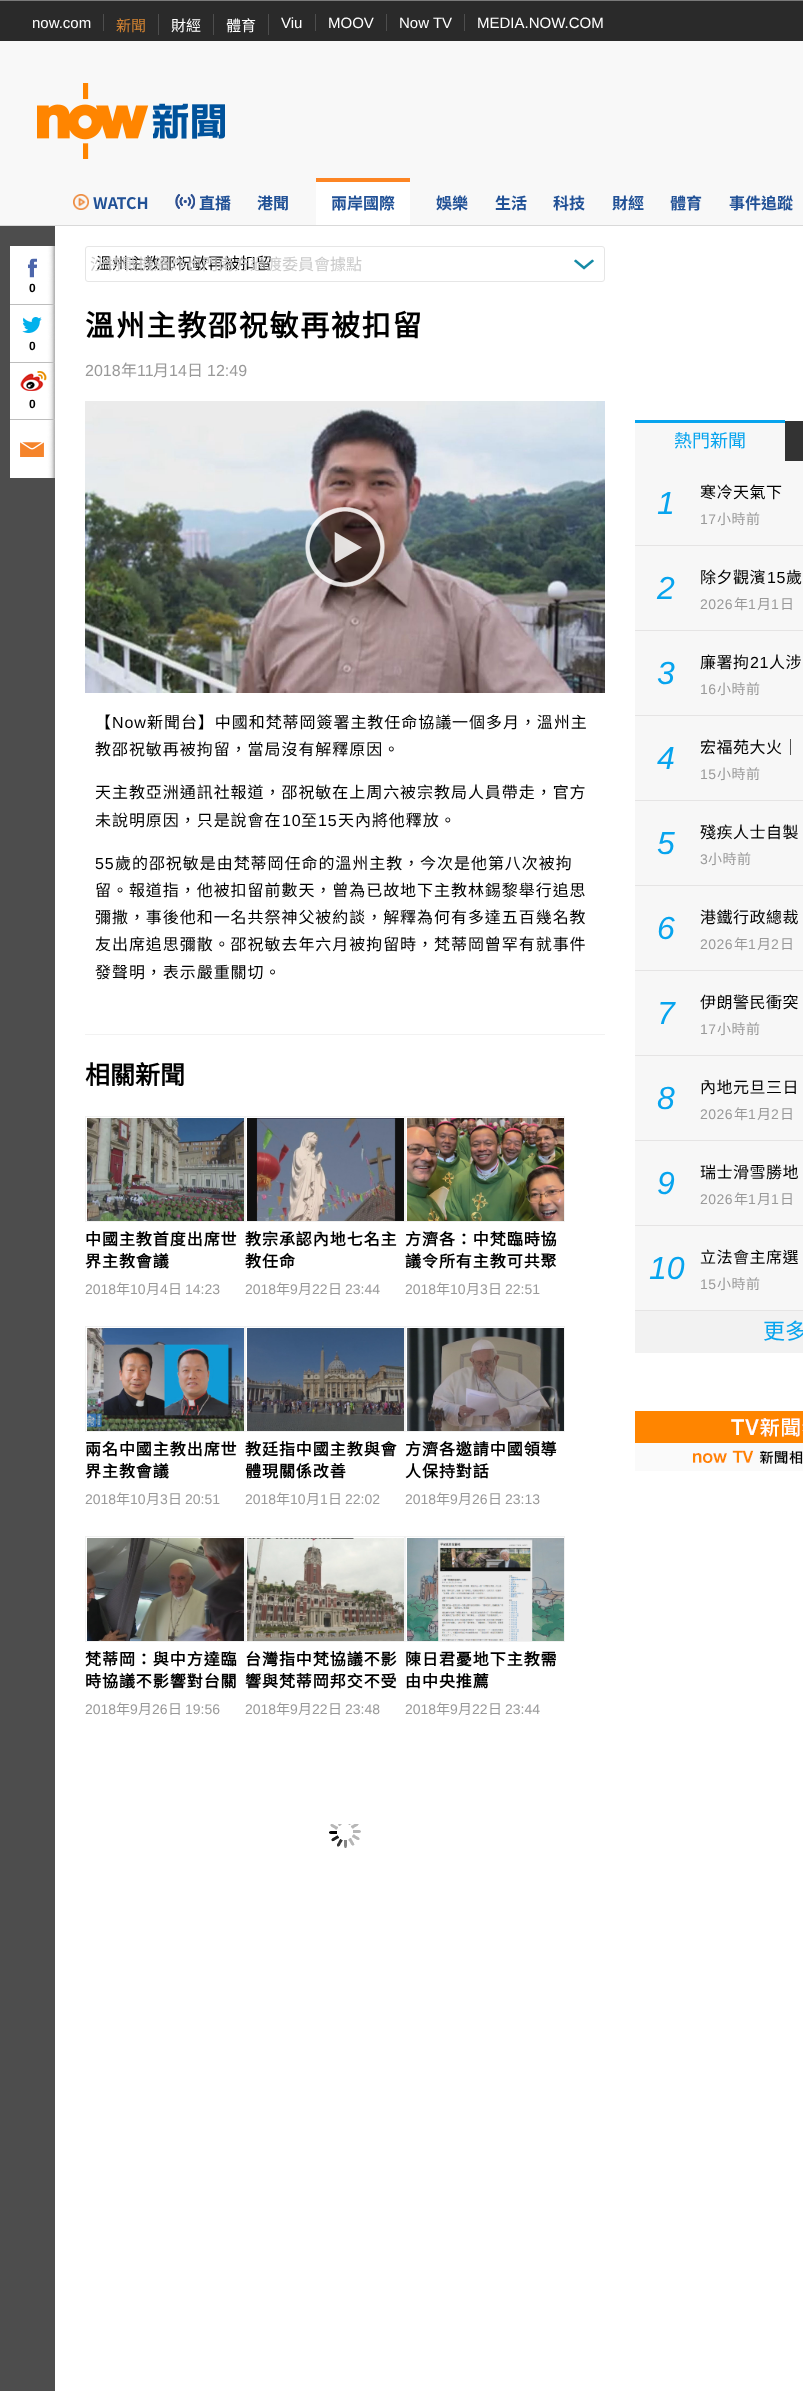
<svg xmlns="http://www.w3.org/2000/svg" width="803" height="2391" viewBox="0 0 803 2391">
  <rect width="100%" height="100%" fill="rgb(77,77,77)"/>
  <rect x="0" y="1" width="803" height="40" fill="rgb(42,42,42)"/>
  <rect x="0" y="0" width="803" height="1" fill="rgb(122,122,122)"/>
  <rect x="103" y="14" width="1" height="17" fill="rgb(77,77,77)"/>
  <text x="32" y="28" font-family="Liberation Sans" font-size="15" fill="rgb(255,255,255)">now.com</text>
  <rect x="158" y="14" width="1" height="21" fill="rgb(77,77,77)"/>
  <text x="116" y="31" font-family="Noto Sans CJK HK" font-size="15" fill="rgb(208,130,50)">新聞</text>
  <rect x="213" y="14" width="1" height="21" fill="rgb(77,77,77)"/>
  <text x="171" y="31" font-family="Noto Sans CJK HK" font-size="15" fill="rgb(255,255,255)">財經</text>
  <rect x="268" y="14" width="1" height="21" fill="rgb(77,77,77)"/>
  <text x="226" y="31" font-family="Noto Sans CJK HK" font-size="15" fill="rgb(255,255,255)">體育</text>
  <rect x="315" y="14" width="1" height="17" fill="rgb(77,77,77)"/>
  <text x="281" y="28" font-family="Liberation Sans" font-size="15" fill="rgb(255,255,255)">Viu</text>
  <rect x="386" y="14" width="1" height="17" fill="rgb(77,77,77)"/>
  <text x="328" y="28" font-family="Liberation Sans" font-size="15" fill="rgb(255,255,255)">MOOV</text>
  <rect x="464" y="14" width="1" height="17" fill="rgb(77,77,77)"/>
  <g font-family="Liberation Sans" font-size="15" fill="rgb(255,255,255)">
    <text x="399" y="28">Now TV</text>
    <text x="477" y="28">MEDIA.NOW.COM</text>
  </g>
  <rect x="0" y="41" width="803" height="184" fill="rgb(248,248,248)"/>
  <image x="37" y="83" width="188" height="76" href="pic1.png"/>
  <rect x="0" y="225" width="803" height="1" fill="rgb(217,217,217)"/>
  <image x="73" y="194" width="16" height="16" href="pic2.png"/>
  <text x="93" y="209" font-family="Noto Sans HK" font-size="16" font-weight="bold" fill="rgb(33,81,150)">WATCH</text>
  <image x="175" y="194" width="20" height="15" href="pic3.png"/>
  <g font-family="Noto Sans HK" font-size="16" font-weight="bold" fill="rgb(33,81,150)">
    <text x="199" y="209">直播</text>
    <text x="257" y="209">港聞</text>
  </g>
  <rect x="316" y="182" width="94" height="43" fill="rgb(255,255,255)"/>
  <rect x="316" y="178" width="94" height="4" fill="rgb(253,133,36)"/>
  <g font-family="Noto Sans HK" font-size="16" font-weight="bold" fill="rgb(33,81,150)">
    <text x="331" y="209">兩岸國際</text>
    <text x="436" y="209">娛樂</text>
    <text x="495" y="209">生活</text>
    <text x="553" y="209">科技</text>
    <text x="612" y="209">財經</text>
    <text x="670" y="209">體育</text>
    <text x="729" y="209">事件追蹤</text>
  </g>
  <image x="10" y="246" width="45" height="232" href="pic4.png"/>
  <g font-family="Liberation Sans" font-size="12" font-weight="bold" fill="rgb(0,0,0)">
    <text x="29" y="292">0</text>
    <text x="29" y="350">0</text>
    <text x="29" y="408">0</text>
  </g>
  <rect x="55" y="226" width="748" height="2165" fill="rgb(255,255,255)"/>
  <rect x="85.5" y="246.5" width="519" height="35" rx="2.5" fill="none" stroke="rgb(230,230,230)"/>
  <image x="574" y="259" width="20" height="11" href="pic5.png"/>
  <text x="96" y="269" font-family="Noto Sans CJK HK" font-size="16" fill="rgb(0,0,0)">溫州主教邵祝敏再被扣留</text>
  <text x="90" y="270" font-family="Noto Sans CJK HK" font-size="16" fill="rgb(202,202,202)">沙特戰機續炸也門南方過渡委員會據點</text>
  <text x="85" y="336" font-family="Noto Sans CJK HK" font-size="29" font-weight="bold" letter-spacing="1.75" fill="rgb(0,0,0)">溫州主教邵祝敏再被扣留</text>
  <text x="85" y="376" font-family="Liberation Sans" font-size="16" fill="rgb(153,153,153)">2018</text>
  <text x="121" y="376" font-family="Noto Sans CJK HK" font-size="16" fill="rgb(153,153,153)">年</text>
  <text x="137" y="376" font-family="Liberation Sans" font-size="16" fill="rgb(153,153,153)">11</text>
  <text x="153" y="376" font-family="Noto Sans CJK HK" font-size="16" fill="rgb(153,153,153)">月</text>
  <text x="169" y="376" font-family="Liberation Sans" font-size="16" fill="rgb(153,153,153)">14</text>
  <text x="187" y="376" font-family="Noto Sans CJK HK" font-size="16" fill="rgb(153,153,153)">日</text>
  <text x="207" y="376" font-family="Liberation Sans" font-size="16" fill="rgb(153,153,153)">12:49</text>
  <image x="85" y="401" width="520" height="292" href="pic6.png"/>
  <image x="305" y="507" width="80" height="80" href="pic7.png"/>
  <text x="95" y="728" font-family="Noto Sans CJK HK" font-size="16" letter-spacing="0.95" fill="rgb(0,0,0)">【</text>
  <text x="112" y="728" font-family="Liberation Sans" font-size="16" letter-spacing="0.95" fill="rgb(0,0,0)">Now</text>
  <g font-family="Noto Sans CJK HK" font-size="16" letter-spacing="0.95" fill="rgb(0,0,0)">
    <text x="147" y="728">新聞台】中國和梵蒂岡簽署主教任命協議一個多月，溫州主</text>
    <text x="95" y="755">教邵祝敏再被拘留，當局沒有解釋原因。</text>
    <text>
      <tspan x="95" y="798">天主教亞洲通訊社報道，邵祝敏在上周六被宗教局人員帶走，官方</tspan>
      <tspan x="95" y="826">未說明原因，只是說會在</tspan>
    </text>
  </g>
  <text x="282" y="826" font-family="Liberation Sans" font-size="16" letter-spacing="0.95" fill="rgb(0,0,0)">10</text>
  <text x="301" y="826" font-family="Noto Sans CJK HK" font-size="16" letter-spacing="0.95" fill="rgb(0,0,0)">至</text>
  <text x="318" y="826" font-family="Liberation Sans" font-size="16" letter-spacing="0.95" fill="rgb(0,0,0)">15</text>
  <text x="338" y="826" font-family="Noto Sans CJK HK" font-size="16" letter-spacing="0.95" fill="rgb(0,0,0)">天內將他釋放。</text>
  <text x="95" y="869" font-family="Liberation Sans" font-size="16" letter-spacing="0.95" fill="rgb(0,0,0)">55</text>
  <g font-family="Noto Sans CJK HK" font-size="16" letter-spacing="0.95" fill="rgb(0,0,0)">
    <text x="115" y="869">歲的邵祝敏是由梵蒂岡任命的溫州主教，今次是他第八次被拘</text>
    <text>
      <tspan x="95" y="896">留。報道指，他被扣留前數天，曾為已故地下主教林錫黎舉行追思</tspan>
      <tspan x="95" y="923">彌撒，事後他和一名共祭神父被約談，解釋為何有多達五百幾名教</tspan>
      <tspan x="95" y="950">友出席追思彌散。邵祝敏去年六月被拘留時，梵蒂岡曾罕有就事件</tspan>
      <tspan x="95" y="978">發聲明，表示嚴重關切。</tspan>
    </text>
  </g>
  <rect x="85" y="1034" width="520" height="1" fill="rgb(242,242,242)"/>
  <text x="85" y="1084" font-family="Noto Sans CJK HK" font-size="25" font-weight="bold" fill="rgb(0,0,0)">相關新聞</text>
  <rect x="85.5" y="1116.5" width="159" height="105" fill="none" stroke="rgb(242,242,242)"/>
  <image x="87" y="1118" width="157" height="103" href="pic8.png"/>
  <g font-family="Noto Sans CJK HK" font-size="16" font-weight="bold" letter-spacing="0.95" fill="rgb(0,0,0)">
    <text>
      <tspan x="85" y="1245">中國主教首度出席世</tspan>
      <tspan x="85" y="1267">界主教會議</tspan>
    </text>
  </g>
  <text x="85" y="1294" font-family="Liberation Sans" font-size="14" fill="rgb(153,153,153)">2018</text>
  <text x="116" y="1294" font-family="Noto Sans CJK HK" font-size="14" fill="rgb(153,153,153)">年</text>
  <text x="130" y="1294" font-family="Liberation Sans" font-size="14" fill="rgb(153,153,153)">10</text>
  <text x="146" y="1294" font-family="Noto Sans CJK HK" font-size="14" fill="rgb(153,153,153)">月</text>
  <text x="160" y="1294" font-family="Liberation Sans" font-size="14" fill="rgb(153,153,153)">4</text>
  <text x="168" y="1294" font-family="Noto Sans CJK HK" font-size="14" fill="rgb(153,153,153)">日</text>
  <text x="185" y="1294" font-family="Liberation Sans" font-size="14" fill="rgb(153,153,153)">14:23</text>
  <rect x="245.5" y="1116.5" width="159" height="105" fill="none" stroke="rgb(242,242,242)"/>
  <image x="247" y="1118" width="157" height="103" href="pic9.png"/>
  <g font-family="Noto Sans CJK HK" font-size="16" font-weight="bold" letter-spacing="0.95" fill="rgb(0,0,0)">
    <text>
      <tspan x="245" y="1245">教宗承認內地七名主</tspan>
      <tspan x="245" y="1267">教任命</tspan>
    </text>
  </g>
  <text x="245" y="1294" font-family="Liberation Sans" font-size="14" fill="rgb(153,153,153)">2018</text>
  <text x="276" y="1294" font-family="Noto Sans CJK HK" font-size="14" fill="rgb(153,153,153)">年</text>
  <text x="290" y="1294" font-family="Liberation Sans" font-size="14" fill="rgb(153,153,153)">9</text>
  <text x="298" y="1294" font-family="Noto Sans CJK HK" font-size="14" fill="rgb(153,153,153)">月</text>
  <text x="312" y="1294" font-family="Liberation Sans" font-size="14" fill="rgb(153,153,153)">22</text>
  <text x="328" y="1294" font-family="Noto Sans CJK HK" font-size="14" fill="rgb(153,153,153)">日</text>
  <text x="345" y="1294" font-family="Liberation Sans" font-size="14" fill="rgb(153,153,153)">23:44</text>
  <rect x="405.5" y="1116.5" width="159" height="105" fill="none" stroke="rgb(242,242,242)"/>
  <image x="407" y="1118" width="157" height="103" href="pic10.png"/>
  <g font-family="Noto Sans CJK HK" font-size="16" font-weight="bold" letter-spacing="0.95" fill="rgb(0,0,0)">
    <text>
      <tspan x="405" y="1245">方濟各：中梵臨時協</tspan>
      <tspan x="405" y="1267">議令所有主教可共聚</tspan>
    </text>
  </g>
  <text x="405" y="1294" font-family="Liberation Sans" font-size="14" fill="rgb(153,153,153)">2018</text>
  <text x="436" y="1294" font-family="Noto Sans CJK HK" font-size="14" fill="rgb(153,153,153)">年</text>
  <text x="450" y="1294" font-family="Liberation Sans" font-size="14" fill="rgb(153,153,153)">10</text>
  <text x="466" y="1294" font-family="Noto Sans CJK HK" font-size="14" fill="rgb(153,153,153)">月</text>
  <text x="480" y="1294" font-family="Liberation Sans" font-size="14" fill="rgb(153,153,153)">3</text>
  <text x="488" y="1294" font-family="Noto Sans CJK HK" font-size="14" fill="rgb(153,153,153)">日</text>
  <text x="505" y="1294" font-family="Liberation Sans" font-size="14" fill="rgb(153,153,153)">22:51</text>
  <rect x="85.5" y="1326.5" width="159" height="105" fill="none" stroke="rgb(242,242,242)"/>
  <image x="87" y="1328" width="157" height="103" href="pic11.png"/>
  <g font-family="Noto Sans CJK HK" font-size="16" font-weight="bold" letter-spacing="0.95" fill="rgb(0,0,0)">
    <text>
      <tspan x="85" y="1455">兩名中國主教出席世</tspan>
      <tspan x="85" y="1477">界主教會議</tspan>
    </text>
  </g>
  <text x="85" y="1504" font-family="Liberation Sans" font-size="14" fill="rgb(153,153,153)">2018</text>
  <text x="116" y="1504" font-family="Noto Sans CJK HK" font-size="14" fill="rgb(153,153,153)">年</text>
  <text x="130" y="1504" font-family="Liberation Sans" font-size="14" fill="rgb(153,153,153)">10</text>
  <text x="146" y="1504" font-family="Noto Sans CJK HK" font-size="14" fill="rgb(153,153,153)">月</text>
  <text x="160" y="1504" font-family="Liberation Sans" font-size="14" fill="rgb(153,153,153)">3</text>
  <text x="168" y="1504" font-family="Noto Sans CJK HK" font-size="14" fill="rgb(153,153,153)">日</text>
  <text x="185" y="1504" font-family="Liberation Sans" font-size="14" fill="rgb(153,153,153)">20:51</text>
  <rect x="245.5" y="1326.5" width="159" height="105" fill="none" stroke="rgb(242,242,242)"/>
  <image x="247" y="1328" width="157" height="103" href="pic12.png"/>
  <g font-family="Noto Sans CJK HK" font-size="16" font-weight="bold" letter-spacing="0.95" fill="rgb(0,0,0)">
    <text>
      <tspan x="245" y="1455">教廷指中國主教與會</tspan>
      <tspan x="245" y="1477">體現關係改善</tspan>
    </text>
  </g>
  <text x="245" y="1504" font-family="Liberation Sans" font-size="14" fill="rgb(153,153,153)">2018</text>
  <text x="276" y="1504" font-family="Noto Sans CJK HK" font-size="14" fill="rgb(153,153,153)">年</text>
  <text x="290" y="1504" font-family="Liberation Sans" font-size="14" fill="rgb(153,153,153)">10</text>
  <text x="306" y="1504" font-family="Noto Sans CJK HK" font-size="14" fill="rgb(153,153,153)">月</text>
  <text x="320" y="1504" font-family="Liberation Sans" font-size="14" fill="rgb(153,153,153)">1</text>
  <text x="328" y="1504" font-family="Noto Sans CJK HK" font-size="14" fill="rgb(153,153,153)">日</text>
  <text x="345" y="1504" font-family="Liberation Sans" font-size="14" fill="rgb(153,153,153)">22:02</text>
  <rect x="405.5" y="1326.5" width="159" height="105" fill="none" stroke="rgb(242,242,242)"/>
  <image x="407" y="1328" width="157" height="103" href="pic13.png"/>
  <g font-family="Noto Sans CJK HK" font-size="16" font-weight="bold" letter-spacing="0.95" fill="rgb(0,0,0)">
    <text>
      <tspan x="405" y="1455">方濟各邀請中國領導</tspan>
      <tspan x="405" y="1477">人保持對話</tspan>
    </text>
  </g>
  <text x="405" y="1504" font-family="Liberation Sans" font-size="14" fill="rgb(153,153,153)">2018</text>
  <text x="436" y="1504" font-family="Noto Sans CJK HK" font-size="14" fill="rgb(153,153,153)">年</text>
  <text x="450" y="1504" font-family="Liberation Sans" font-size="14" fill="rgb(153,153,153)">9</text>
  <text x="458" y="1504" font-family="Noto Sans CJK HK" font-size="14" fill="rgb(153,153,153)">月</text>
  <text x="472" y="1504" font-family="Liberation Sans" font-size="14" fill="rgb(153,153,153)">26</text>
  <text x="488" y="1504" font-family="Noto Sans CJK HK" font-size="14" fill="rgb(153,153,153)">日</text>
  <text x="505" y="1504" font-family="Liberation Sans" font-size="14" fill="rgb(153,153,153)">23:13</text>
  <rect x="85.5" y="1536.5" width="159" height="105" fill="none" stroke="rgb(242,242,242)"/>
  <image x="87" y="1538" width="157" height="103" href="pic14.png"/>
  <g font-family="Noto Sans CJK HK" font-size="16" font-weight="bold" letter-spacing="0.95" fill="rgb(0,0,0)">
    <text>
      <tspan x="85" y="1665">梵蒂岡：與中方達臨</tspan>
      <tspan x="85" y="1687">時協議不影響對台關</tspan>
    </text>
  </g>
  <text x="85" y="1714" font-family="Liberation Sans" font-size="14" fill="rgb(153,153,153)">2018</text>
  <text x="116" y="1714" font-family="Noto Sans CJK HK" font-size="14" fill="rgb(153,153,153)">年</text>
  <text x="130" y="1714" font-family="Liberation Sans" font-size="14" fill="rgb(153,153,153)">9</text>
  <text x="138" y="1714" font-family="Noto Sans CJK HK" font-size="14" fill="rgb(153,153,153)">月</text>
  <text x="152" y="1714" font-family="Liberation Sans" font-size="14" fill="rgb(153,153,153)">26</text>
  <text x="168" y="1714" font-family="Noto Sans CJK HK" font-size="14" fill="rgb(153,153,153)">日</text>
  <text x="185" y="1714" font-family="Liberation Sans" font-size="14" fill="rgb(153,153,153)">19:56</text>
  <rect x="245.5" y="1536.5" width="159" height="105" fill="none" stroke="rgb(242,242,242)"/>
  <image x="247" y="1538" width="157" height="103" href="pic15.png"/>
  <g font-family="Noto Sans CJK HK" font-size="16" font-weight="bold" letter-spacing="0.95" fill="rgb(0,0,0)">
    <text>
      <tspan x="245" y="1665">台灣指中梵協議不影</tspan>
      <tspan x="245" y="1687">響與梵蒂岡邦交不受</tspan>
    </text>
  </g>
  <text x="245" y="1714" font-family="Liberation Sans" font-size="14" fill="rgb(153,153,153)">2018</text>
  <text x="276" y="1714" font-family="Noto Sans CJK HK" font-size="14" fill="rgb(153,153,153)">年</text>
  <text x="290" y="1714" font-family="Liberation Sans" font-size="14" fill="rgb(153,153,153)">9</text>
  <text x="298" y="1714" font-family="Noto Sans CJK HK" font-size="14" fill="rgb(153,153,153)">月</text>
  <text x="312" y="1714" font-family="Liberation Sans" font-size="14" fill="rgb(153,153,153)">22</text>
  <text x="328" y="1714" font-family="Noto Sans CJK HK" font-size="14" fill="rgb(153,153,153)">日</text>
  <text x="345" y="1714" font-family="Liberation Sans" font-size="14" fill="rgb(153,153,153)">23:48</text>
  <rect x="405.5" y="1536.5" width="159" height="105" fill="none" stroke="rgb(242,242,242)"/>
  <image x="407" y="1538" width="157" height="103" href="pic16.png"/>
  <g font-family="Noto Sans CJK HK" font-size="16" font-weight="bold" letter-spacing="0.95" fill="rgb(0,0,0)">
    <text>
      <tspan x="405" y="1665">陳日君憂地下主教需</tspan>
      <tspan x="405" y="1687">由中央推薦</tspan>
    </text>
  </g>
  <text x="405" y="1714" font-family="Liberation Sans" font-size="14" fill="rgb(153,153,153)">2018</text>
  <text x="436" y="1714" font-family="Noto Sans CJK HK" font-size="14" fill="rgb(153,153,153)">年</text>
  <text x="450" y="1714" font-family="Liberation Sans" font-size="14" fill="rgb(153,153,153)">9</text>
  <text x="458" y="1714" font-family="Noto Sans CJK HK" font-size="14" fill="rgb(153,153,153)">月</text>
  <text x="472" y="1714" font-family="Liberation Sans" font-size="14" fill="rgb(153,153,153)">22</text>
  <text x="488" y="1714" font-family="Noto Sans CJK HK" font-size="14" fill="rgb(153,153,153)">日</text>
  <text x="505" y="1714" font-family="Liberation Sans" font-size="14" fill="rgb(153,153,153)">23:44</text>
  <image x="329" y="1824" width="32" height="24" href="pic17.png"/>
  <rect x="635" y="423" width="150" height="38" fill="rgb(247,247,247)"/>
  <rect x="635" y="420" width="150" height="3" fill="rgb(7,164,238)"/>
  <text x="674" y="447" font-family="Noto Sans CJK HK" font-size="18" fill="rgb(7,164,238)">熱門新聞</text>
  <rect x="785" y="421" width="18" height="40" fill="rgb(51,51,51)"/>
  <rect x="635" y="461" width="168" height="84" fill="rgb(247,247,247)"/>
  <rect x="635" y="545" width="168" height="1" fill="rgb(229,228,228)"/>
  <text x="657" y="514" font-family="Liberation Sans" font-size="32" font-style="italic" fill="rgb(7,164,238)">1</text>
  <text x="700" y="498" font-family="Noto Sans CJK HK" font-size="16" letter-spacing="0.5" fill="rgb(0,0,0)">寒冷天氣下</text>
  <text x="700" y="524" font-family="Liberation Sans" font-size="14" letter-spacing="0.5" fill="rgb(153,153,153)">17</text>
  <text x="717" y="524" font-family="Noto Sans CJK HK" font-size="14" letter-spacing="0.5" fill="rgb(153,153,153)">小時前</text>
  <rect x="635" y="546" width="168" height="84" fill="rgb(247,247,247)"/>
  <rect x="635" y="630" width="168" height="1" fill="rgb(229,228,228)"/>
  <text x="657" y="599" font-family="Liberation Sans" font-size="32" font-style="italic" fill="rgb(7,164,238)">2</text>
  <text x="700" y="583" font-family="Noto Sans CJK HK" font-size="16" letter-spacing="0.5" fill="rgb(0,0,0)">除夕觀濱</text>
  <text x="767" y="583" font-family="Liberation Sans" font-size="16" letter-spacing="0.5" fill="rgb(0,0,0)">15</text>
  <text x="786" y="583" font-family="Noto Sans CJK HK" font-size="16" letter-spacing="0.5" fill="rgb(0,0,0)">歲</text>
  <text x="700" y="609" font-family="Liberation Sans" font-size="14" letter-spacing="0.5" fill="rgb(153,153,153)">2026</text>
  <text x="734" y="609" font-family="Noto Sans CJK HK" font-size="14" letter-spacing="0.5" fill="rgb(153,153,153)">年</text>
  <text x="748" y="609" font-family="Liberation Sans" font-size="14" letter-spacing="0.5" fill="rgb(153,153,153)">1</text>
  <text x="757" y="609" font-family="Noto Sans CJK HK" font-size="14" letter-spacing="0.5" fill="rgb(153,153,153)">月</text>
  <text x="771" y="609" font-family="Liberation Sans" font-size="14" letter-spacing="0.5" fill="rgb(153,153,153)">1</text>
  <text x="780" y="609" font-family="Noto Sans CJK HK" font-size="14" letter-spacing="0.5" fill="rgb(153,153,153)">日</text>
  <rect x="635" y="631" width="168" height="84" fill="rgb(247,247,247)"/>
  <rect x="635" y="715" width="168" height="1" fill="rgb(229,228,228)"/>
  <text x="657" y="684" font-family="Liberation Sans" font-size="32" font-style="italic" fill="rgb(7,164,238)">3</text>
  <text x="700" y="668" font-family="Noto Sans CJK HK" font-size="16" letter-spacing="0.5" fill="rgb(0,0,0)">廉署拘</text>
  <text x="750" y="668" font-family="Liberation Sans" font-size="16" letter-spacing="0.5" fill="rgb(0,0,0)">21</text>
  <text x="769" y="668" font-family="Noto Sans CJK HK" font-size="16" letter-spacing="0.5" fill="rgb(0,0,0)">人涉</text>
  <text x="700" y="694" font-family="Liberation Sans" font-size="14" letter-spacing="0.5" fill="rgb(153,153,153)">16</text>
  <text x="717" y="694" font-family="Noto Sans CJK HK" font-size="14" letter-spacing="0.5" fill="rgb(153,153,153)">小時前</text>
  <rect x="635" y="716" width="168" height="84" fill="rgb(247,247,247)"/>
  <rect x="635" y="800" width="168" height="1" fill="rgb(229,228,228)"/>
  <text x="657" y="769" font-family="Liberation Sans" font-size="32" font-style="italic" fill="rgb(7,164,238)">4</text>
  <text x="700" y="753" font-family="Noto Sans CJK HK" font-size="16" letter-spacing="0.5" fill="rgb(0,0,0)">宏福苑大火｜</text>
  <text x="700" y="779" font-family="Liberation Sans" font-size="14" letter-spacing="0.5" fill="rgb(153,153,153)">15</text>
  <text x="717" y="779" font-family="Noto Sans CJK HK" font-size="14" letter-spacing="0.5" fill="rgb(153,153,153)">小時前</text>
  <rect x="635" y="801" width="168" height="84" fill="rgb(247,247,247)"/>
  <rect x="635" y="885" width="168" height="1" fill="rgb(229,228,228)"/>
  <text x="657" y="854" font-family="Liberation Sans" font-size="32" font-style="italic" fill="rgb(7,164,238)">5</text>
  <text x="700" y="838" font-family="Noto Sans CJK HK" font-size="16" letter-spacing="0.5" fill="rgb(0,0,0)">殘疾人士自製</text>
  <text x="700" y="864" font-family="Liberation Sans" font-size="14" letter-spacing="0.5" fill="rgb(153,153,153)">3</text>
  <text x="708" y="864" font-family="Noto Sans CJK HK" font-size="14" letter-spacing="0.5" fill="rgb(153,153,153)">小時前</text>
  <rect x="635" y="886" width="168" height="84" fill="rgb(247,247,247)"/>
  <rect x="635" y="970" width="168" height="1" fill="rgb(229,228,228)"/>
  <text x="657" y="939" font-family="Liberation Sans" font-size="32" font-style="italic" fill="rgb(7,164,238)">6</text>
  <text x="700" y="923" font-family="Noto Sans CJK HK" font-size="16" letter-spacing="0.5" fill="rgb(0,0,0)">港鐵行政總裁</text>
  <text x="700" y="949" font-family="Liberation Sans" font-size="14" letter-spacing="0.5" fill="rgb(153,153,153)">2026</text>
  <text x="734" y="949" font-family="Noto Sans CJK HK" font-size="14" letter-spacing="0.5" fill="rgb(153,153,153)">年</text>
  <text x="748" y="949" font-family="Liberation Sans" font-size="14" letter-spacing="0.5" fill="rgb(153,153,153)">1</text>
  <text x="757" y="949" font-family="Noto Sans CJK HK" font-size="14" letter-spacing="0.5" fill="rgb(153,153,153)">月</text>
  <text x="771" y="949" font-family="Liberation Sans" font-size="14" letter-spacing="0.5" fill="rgb(153,153,153)">2</text>
  <text x="780" y="949" font-family="Noto Sans CJK HK" font-size="14" letter-spacing="0.5" fill="rgb(153,153,153)">日</text>
  <rect x="635" y="971" width="168" height="84" fill="rgb(247,247,247)"/>
  <rect x="635" y="1055" width="168" height="1" fill="rgb(229,228,228)"/>
  <text x="657" y="1024" font-family="Liberation Sans" font-size="32" font-style="italic" fill="rgb(7,164,238)">7</text>
  <text x="700" y="1008" font-family="Noto Sans CJK HK" font-size="16" letter-spacing="0.5" fill="rgb(0,0,0)">伊朗警民衝突</text>
  <text x="700" y="1034" font-family="Liberation Sans" font-size="14" letter-spacing="0.5" fill="rgb(153,153,153)">17</text>
  <text x="717" y="1034" font-family="Noto Sans CJK HK" font-size="14" letter-spacing="0.5" fill="rgb(153,153,153)">小時前</text>
  <rect x="635" y="1056" width="168" height="84" fill="rgb(247,247,247)"/>
  <rect x="635" y="1140" width="168" height="1" fill="rgb(229,228,228)"/>
  <text x="657" y="1109" font-family="Liberation Sans" font-size="32" font-style="italic" fill="rgb(7,164,238)">8</text>
  <text x="700" y="1093" font-family="Noto Sans CJK HK" font-size="16" letter-spacing="0.5" fill="rgb(0,0,0)">內地元旦三日</text>
  <text x="700" y="1119" font-family="Liberation Sans" font-size="14" letter-spacing="0.5" fill="rgb(153,153,153)">2026</text>
  <text x="734" y="1119" font-family="Noto Sans CJK HK" font-size="14" letter-spacing="0.5" fill="rgb(153,153,153)">年</text>
  <text x="748" y="1119" font-family="Liberation Sans" font-size="14" letter-spacing="0.5" fill="rgb(153,153,153)">1</text>
  <text x="757" y="1119" font-family="Noto Sans CJK HK" font-size="14" letter-spacing="0.5" fill="rgb(153,153,153)">月</text>
  <text x="771" y="1119" font-family="Liberation Sans" font-size="14" letter-spacing="0.5" fill="rgb(153,153,153)">2</text>
  <text x="780" y="1119" font-family="Noto Sans CJK HK" font-size="14" letter-spacing="0.5" fill="rgb(153,153,153)">日</text>
  <rect x="635" y="1141" width="168" height="84" fill="rgb(247,247,247)"/>
  <rect x="635" y="1225" width="168" height="1" fill="rgb(229,228,228)"/>
  <text x="657" y="1194" font-family="Liberation Sans" font-size="32" font-style="italic" fill="rgb(7,164,238)">9</text>
  <text x="700" y="1178" font-family="Noto Sans CJK HK" font-size="16" letter-spacing="0.5" fill="rgb(0,0,0)">瑞士滑雪勝地</text>
  <text x="700" y="1204" font-family="Liberation Sans" font-size="14" letter-spacing="0.5" fill="rgb(153,153,153)">2026</text>
  <text x="734" y="1204" font-family="Noto Sans CJK HK" font-size="14" letter-spacing="0.5" fill="rgb(153,153,153)">年</text>
  <text x="748" y="1204" font-family="Liberation Sans" font-size="14" letter-spacing="0.5" fill="rgb(153,153,153)">1</text>
  <text x="757" y="1204" font-family="Noto Sans CJK HK" font-size="14" letter-spacing="0.5" fill="rgb(153,153,153)">月</text>
  <text x="771" y="1204" font-family="Liberation Sans" font-size="14" letter-spacing="0.5" fill="rgb(153,153,153)">1</text>
  <text x="780" y="1204" font-family="Noto Sans CJK HK" font-size="14" letter-spacing="0.5" fill="rgb(153,153,153)">日</text>
  <rect x="635" y="1226" width="168" height="84" fill="rgb(247,247,247)"/>
  <rect x="635" y="1310" width="168" height="1" fill="rgb(229,228,228)"/>
  <text x="649" y="1279" font-family="Liberation Sans" font-size="32" font-style="italic" fill="rgb(7,164,238)">10</text>
  <text x="700" y="1263" font-family="Noto Sans CJK HK" font-size="16" letter-spacing="0.5" fill="rgb(0,0,0)">立法會主席選</text>
  <text x="700" y="1289" font-family="Liberation Sans" font-size="14" letter-spacing="0.5" fill="rgb(153,153,153)">15</text>
  <text x="717" y="1289" font-family="Noto Sans CJK HK" font-size="14" letter-spacing="0.5" fill="rgb(153,153,153)">小時前</text>
  <rect x="635" y="1311" width="168" height="42" fill="rgb(242,242,242)"/>
  <text x="763" y="1339" font-family="Noto Sans CJK HK" font-size="22" fill="rgb(7,164,238)">更多</text>
  <image x="635" y="1411" width="168" height="60" href="pic18.png"/>
</svg>
